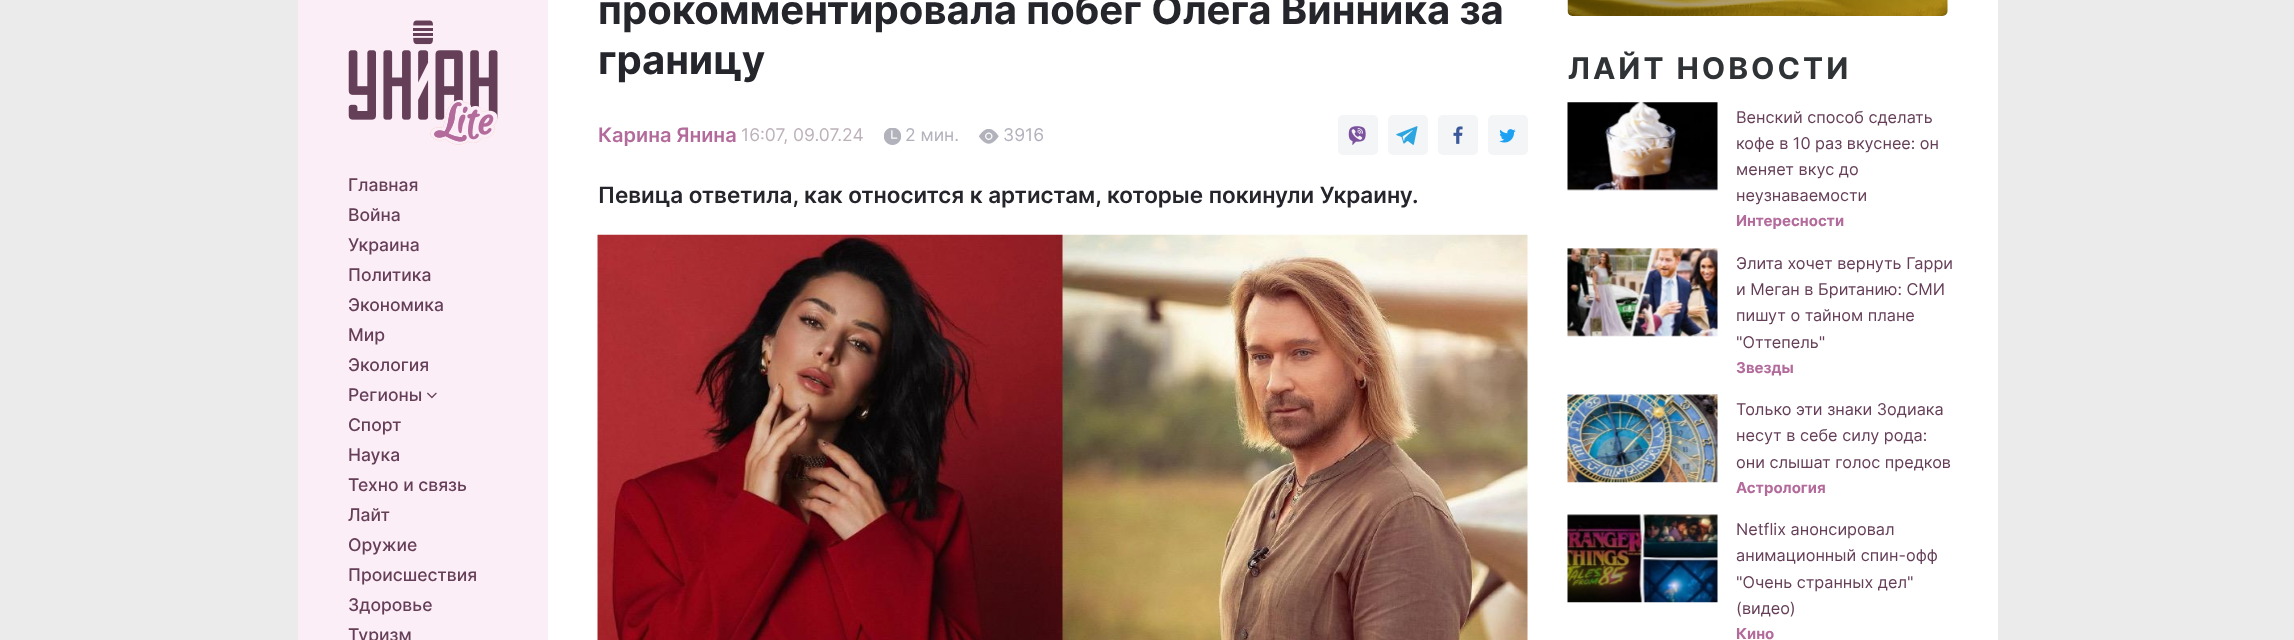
<svg xmlns="http://www.w3.org/2000/svg" width="2294" height="640" viewBox="0 0 2294 640">
  <rect width="100%" height="100%" fill="rgb(235,235,235)"/>
  <rect x="548" y="0" width="1450" height="640" fill="rgb(255,255,255)"/>
  <rect x="298" y="0" width="250" height="640" fill="rgb(251,238,247)"/>
  <image x="348" y="20" width="150" height="125" href="pic1.png"/>
  <g font-family="Inter" font-size="17.5" font-weight="500" fill="rgb(101,62,88)">
    <text>
      <tspan x="348" y="191">Главная</tspan>
      <tspan x="348" y="221">Война</tspan>
      <tspan x="348" y="251">Украина</tspan>
      <tspan x="348" y="281">Политика</tspan>
      <tspan x="348" y="311">Экономика</tspan>
      <tspan x="348" y="341">Мир</tspan>
      <tspan x="348" y="371">Экология</tspan>
      <tspan x="348" y="401">Регионы</tspan>
    </text>
  </g>
  <image x="427" y="392" width="10" height="7" href="pic2.png"/>
  <g font-family="Inter" font-size="17.5" font-weight="500" fill="rgb(101,62,88)">
    <text>
      <tspan x="348" y="431">Спорт</tspan>
      <tspan x="348" y="461">Наука</tspan>
      <tspan x="348" y="491">Техно и связь</tspan>
      <tspan x="348" y="521">Лайт</tspan>
      <tspan x="348" y="551">Оружие</tspan>
      <tspan x="348" y="581">Происшествия</tspan>
      <tspan x="348" y="611">Здоровье</tspan>
      <tspan x="348" y="641">Туризм</tspan>
    </text>
  </g>
  <g font-family="Inter" font-size="40" font-weight="bold" fill="rgb(37,37,44)">
    <text>
      <tspan x="598" y="24">прокомментировала побег Олега Винника за</tspan>
      <tspan x="598" y="74">границу</tspan>
    </text>
  </g>
  <text x="598" y="142" font-family="Inter" font-size="20" font-weight="600" fill="rgb(179,107,155)">Карина Янина</text>
  <text x="741" y="141" font-family="Inter" font-size="17.5" fill="rgb(189,178,186)">16:07, 09.07.24</text>
  <image x="884" y="128" width="17" height="17" href="pic3.png"/>
  <text x="905" y="141" font-family="Inter" font-size="17.5" fill="rgb(178,178,189)">2 мин.</text>
  <image x="979" y="129" width="20" height="15" href="pic4.png"/>
  <text x="1003" y="141" font-family="Inter" font-size="17.5" fill="rgb(178,178,189)">3916</text>
  <rect x="1338" y="115" width="40" height="40" rx="5" fill="rgb(244,245,246)"/>
  <image x="1348" y="126" width="18" height="19" href="pic5.png"/>
  <rect x="1388" y="115" width="40" height="40" rx="5" fill="rgb(244,245,246)"/>
  <image x="1396" y="126" width="22" height="19" href="pic6.png"/>
  <rect x="1438" y="115" width="40" height="40" rx="5" fill="rgb(244,245,246)"/>
  <image x="1453" y="126" width="10" height="18" href="pic7.png"/>
  <rect x="1488" y="115" width="40" height="40" rx="5" fill="rgb(244,245,246)"/>
  <image x="1499" y="129" width="17" height="14" href="pic8.png"/>
  <text x="598" y="203" font-family="Inter" font-size="22.5" font-weight="600" fill="rgb(37,37,44)">Певица ответила, как относится к артистам, которые покинули Украину.</text>
  <image x="597" y="234" width="931" height="406" href="pic9.png"/>
  <image x="1567" y="0" width="381" height="16" href="pic10.png"/>
  <text x="1568" y="79" font-family="Inter" font-size="30" font-weight="bold" letter-spacing="3" fill="rgb(47,51,53)">ЛАЙТ НОВОСТИ</text>
  <image x="1567" y="102" width="151" height="89" href="pic11.png"/>
  <g font-family="Inter" font-size="16.25" fill="rgb(101,62,88)">
    <text>
      <tspan x="1736" y="123">Венский способ сделать</tspan>
      <tspan x="1736" y="149">кофе в 10 раз вкуснее: он</tspan>
      <tspan x="1736" y="175">меняет вкус до</tspan>
      <tspan x="1736" y="201">неузнаваемости</tspan>
    </text>
  </g>
  <text x="1736" y="226" font-family="Inter" font-size="15" font-weight="bold" fill="rgb(179,107,155)">Интересности</text>
  <image x="1567" y="248" width="151" height="89" href="pic12.png"/>
  <g font-family="Inter" font-size="16.25" fill="rgb(101,62,88)">
    <text>
      <tspan x="1736" y="269">Элита хочет вернуть Гарри</tspan>
      <tspan x="1736" y="295">и Меган в Британию: СМИ</tspan>
      <tspan x="1736" y="321">пишут о тайном плане</tspan>
      <tspan x="1736" y="348">"Оттепель"</tspan>
    </text>
  </g>
  <text x="1736" y="373" font-family="Inter" font-size="15" font-weight="bold" fill="rgb(179,107,155)">Звезды</text>
  <image x="1567" y="394" width="151" height="89" href="pic13.png"/>
  <g font-family="Inter" font-size="16.25" fill="rgb(101,62,88)">
    <text>
      <tspan x="1736" y="415">Только эти знаки Зодиака</tspan>
      <tspan x="1736" y="441">несут в себе силу рода:</tspan>
      <tspan x="1736" y="468">они слышат голос предков</tspan>
    </text>
  </g>
  <text x="1736" y="493" font-family="Inter" font-size="15" font-weight="bold" fill="rgb(179,107,155)">Астрология</text>
  <image x="1567" y="514" width="151" height="89" href="pic14.png"/>
  <g font-family="Inter" font-size="16.25" fill="rgb(101,62,88)">
    <text>
      <tspan x="1736" y="535">Netflix анонсировал</tspan>
      <tspan x="1736" y="561">анимационный спин-офф</tspan>
      <tspan x="1736" y="588">"Очень странных дел"</tspan>
      <tspan x="1736" y="614">(видео)</tspan>
    </text>
  </g>
  <text x="1736" y="639" font-family="Inter" font-size="15" font-weight="bold" fill="rgb(179,107,155)">Кино</text>
</svg>
